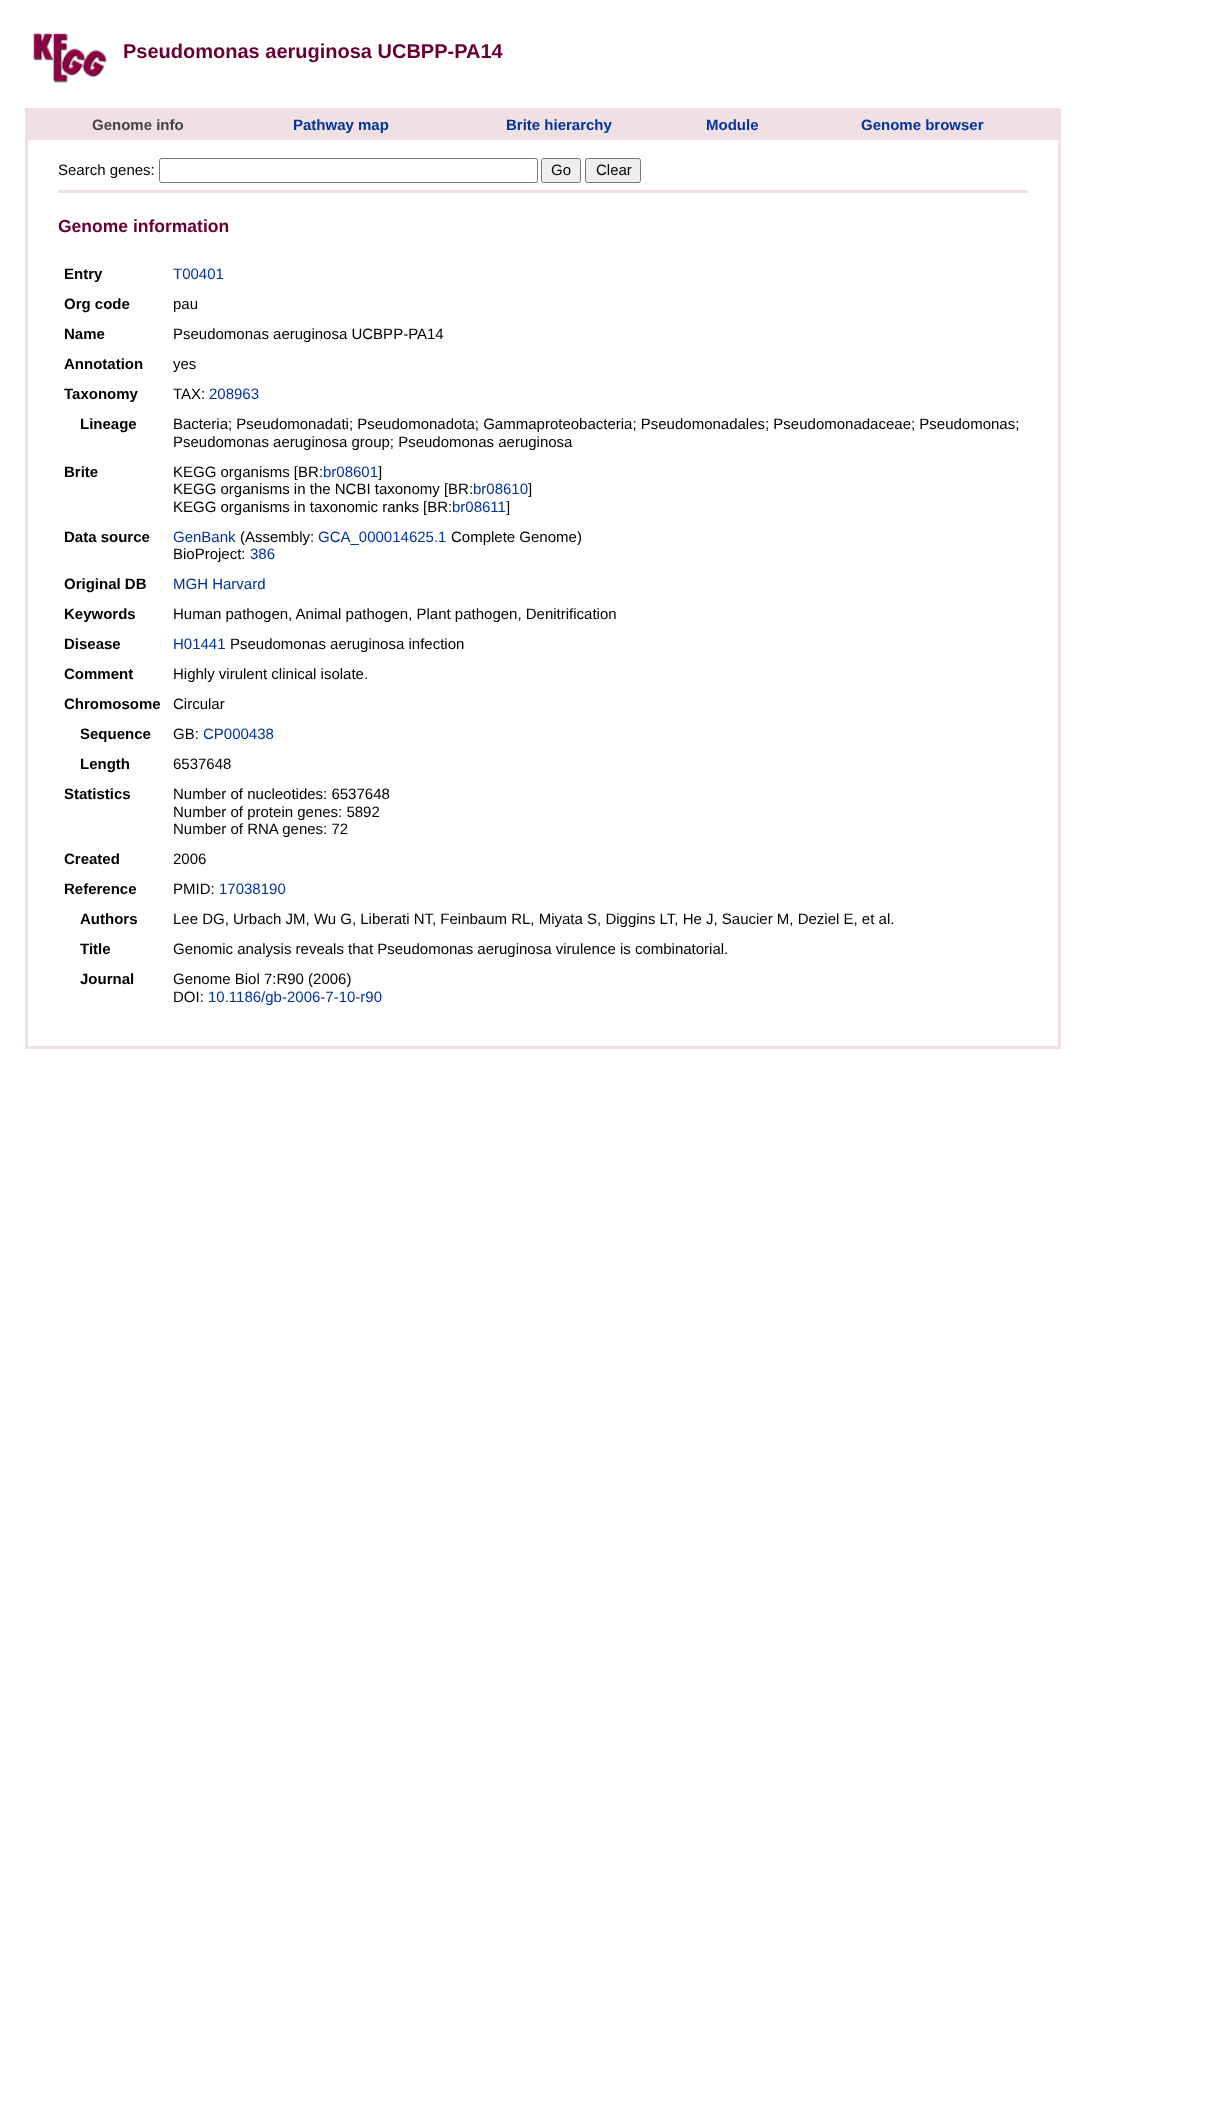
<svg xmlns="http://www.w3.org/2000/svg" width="1207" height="2111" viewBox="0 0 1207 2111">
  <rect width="100%" height="100%" fill="rgb(255,255,255)"/>
  <image x="33" y="33" width="74" height="50" href="pic1.png"/>
  <text x="123" y="58" font-family="Liberation Sans" font-size="20" font-weight="bold" fill="rgb(102,0,51)">Pseudomonas aeruginosa UCBPP-PA14</text>
  <rect x="25" y="108" width="1035" height="3" fill="rgb(240,224,228)"/>
  <rect x="1058" y="108" width="3" height="941" fill="rgb(240,224,228)"/>
  <rect x="25" y="1046" width="1035" height="3" fill="rgb(240,224,228)"/>
  <rect x="25" y="108" width="3" height="941" fill="rgb(240,224,228)"/>
  <rect x="28" y="111" width="1030" height="29" fill="rgb(240,224,228)"/>
  <text x="92" y="130" font-family="Liberation Sans" font-size="15" font-weight="bold" fill="rgb(68,68,68)">Genome info</text>
  <g font-family="Liberation Sans" font-size="15" font-weight="bold" fill="rgb(0,51,153)">
    <text x="293" y="130">Pathway map</text>
    <text x="506" y="130">Brite hierarchy</text>
    <text x="706" y="130">Module</text>
    <text x="861" y="130">Genome browser</text>
  </g>
  <text x="58" y="175" font-family="Liberation Sans" font-size="15" fill="rgb(0,0,0)">Search genes:</text>
  <rect x="159.5" y="158.5" width="378" height="24" rx="2" fill="none" stroke="rgb(118,118,118)"/>
  <rect x="541.5" y="158.5" width="39" height="24" rx="2" fill="rgb(239,239,239)" stroke="rgb(118,118,118)"/>
  <text x="551" y="175" font-family="Liberation Sans" font-size="15" fill="rgb(0,0,0)">Go</text>
  <rect x="585.5" y="158.5" width="55" height="24" rx="2" fill="rgb(239,239,239)" stroke="rgb(118,118,118)"/>
  <text x="596" y="175" font-family="Liberation Sans" font-size="15" fill="rgb(0,0,0)">Clear</text>
  <rect x="58" y="190" width="970" height="3" fill="rgb(240,224,228)"/>
  <text x="58" y="232" font-family="Liberation Sans" font-size="17.5" font-weight="bold" fill="rgb(102,0,51)">Genome information</text>
  <text x="64" y="279" font-family="Liberation Sans" font-size="15" font-weight="bold" fill="rgb(0,0,0)">Entry</text>
  <text x="173" y="279" font-family="Liberation Sans" font-size="15" fill="rgb(0,51,153)">T00401</text>
  <text x="64" y="309" font-family="Liberation Sans" font-size="15" font-weight="bold" fill="rgb(0,0,0)">Org code</text>
  <text x="173" y="309" font-family="Liberation Sans" font-size="15" fill="rgb(0,0,0)">pau</text>
  <text x="64" y="339" font-family="Liberation Sans" font-size="15" font-weight="bold" fill="rgb(0,0,0)">Name</text>
  <text x="173" y="339" font-family="Liberation Sans" font-size="15" fill="rgb(0,0,0)">Pseudomonas aeruginosa UCBPP-PA14</text>
  <text x="64" y="369" font-family="Liberation Sans" font-size="15" font-weight="bold" fill="rgb(0,0,0)">Annotation</text>
  <text x="173" y="369" font-family="Liberation Sans" font-size="15" fill="rgb(0,0,0)">yes</text>
  <text x="64" y="399" font-family="Liberation Sans" font-size="15" font-weight="bold" fill="rgb(0,0,0)">Taxonomy</text>
  <text x="173" y="399" font-family="Liberation Sans" font-size="15" fill="rgb(0,0,0)">TAX:</text>
  <text x="209" y="399" font-family="Liberation Sans" font-size="15" fill="rgb(0,51,153)">208963</text>
  <text x="80" y="429" font-family="Liberation Sans" font-size="15" font-weight="bold" fill="rgb(0,0,0)">Lineage</text>
  <g font-family="Liberation Sans" font-size="15" fill="rgb(0,0,0)">
    <text>
      <tspan x="173" y="429">Bacteria; Pseudomonadati; Pseudomonadota; Gammaproteobacteria; Pseudomonadales; Pseudomonadaceae; Pseudomonas;</tspan>
      <tspan x="173" y="447">Pseudomonas aeruginosa group; Pseudomonas aeruginosa</tspan>
    </text>
  </g>
  <text x="64" y="477" font-family="Liberation Sans" font-size="15" font-weight="bold" fill="rgb(0,0,0)">Brite</text>
  <text x="173" y="477" font-family="Liberation Sans" font-size="15" fill="rgb(0,0,0)">KEGG organisms [BR:</text>
  <text x="323" y="477" font-family="Liberation Sans" font-size="15" fill="rgb(0,51,153)">br08601</text>
  <g font-family="Liberation Sans" font-size="15" fill="rgb(0,0,0)">
    <text x="378" y="477">]</text>
    <text x="173" y="494">KEGG organisms in the NCBI taxonomy [BR:</text>
  </g>
  <text x="473" y="494" font-family="Liberation Sans" font-size="15" fill="rgb(0,51,153)">br08610</text>
  <g font-family="Liberation Sans" font-size="15" fill="rgb(0,0,0)">
    <text x="528" y="494">]</text>
    <text x="173" y="512">KEGG organisms in taxonomic ranks [BR:</text>
  </g>
  <text x="452" y="512" font-family="Liberation Sans" font-size="15" fill="rgb(0,51,153)">br08611</text>
  <text x="506" y="512" font-family="Liberation Sans" font-size="15" fill="rgb(0,0,0)">]</text>
  <text x="64" y="542" font-family="Liberation Sans" font-size="15" font-weight="bold" fill="rgb(0,0,0)">Data source</text>
  <text x="173" y="542" font-family="Liberation Sans" font-size="15" fill="rgb(0,51,153)">GenBank</text>
  <text x="240" y="542" font-family="Liberation Sans" font-size="15" fill="rgb(0,0,0)">(Assembly:</text>
  <text x="318" y="542" font-family="Liberation Sans" font-size="15" fill="rgb(0,51,153)">GCA_000014625.1</text>
  <g font-family="Liberation Sans" font-size="15" fill="rgb(0,0,0)">
    <text x="451" y="542">Complete Genome)</text>
    <text x="173" y="559">BioProject:</text>
  </g>
  <text x="250" y="559" font-family="Liberation Sans" font-size="15" fill="rgb(0,51,153)">386</text>
  <text x="64" y="589" font-family="Liberation Sans" font-size="15" font-weight="bold" fill="rgb(0,0,0)">Original DB</text>
  <text x="173" y="589" font-family="Liberation Sans" font-size="15" fill="rgb(0,51,153)">MGH Harvard</text>
  <text x="64" y="619" font-family="Liberation Sans" font-size="15" font-weight="bold" fill="rgb(0,0,0)">Keywords</text>
  <text x="173" y="619" font-family="Liberation Sans" font-size="15" fill="rgb(0,0,0)">Human pathogen, Animal pathogen, Plant pathogen, Denitrification</text>
  <text x="64" y="649" font-family="Liberation Sans" font-size="15" font-weight="bold" fill="rgb(0,0,0)">Disease</text>
  <text x="173" y="649" font-family="Liberation Sans" font-size="15" fill="rgb(0,51,153)">H01441</text>
  <text x="230" y="649" font-family="Liberation Sans" font-size="15" fill="rgb(0,0,0)">Pseudomonas aeruginosa infection</text>
  <text x="64" y="679" font-family="Liberation Sans" font-size="15" font-weight="bold" fill="rgb(0,0,0)">Comment</text>
  <text x="173" y="679" font-family="Liberation Sans" font-size="15" fill="rgb(0,0,0)">Highly virulent clinical isolate.</text>
  <text x="64" y="709" font-family="Liberation Sans" font-size="15" font-weight="bold" fill="rgb(0,0,0)">Chromosome</text>
  <text x="173" y="709" font-family="Liberation Sans" font-size="15" fill="rgb(0,0,0)">Circular</text>
  <text x="80" y="739" font-family="Liberation Sans" font-size="15" font-weight="bold" fill="rgb(0,0,0)">Sequence</text>
  <text x="173" y="739" font-family="Liberation Sans" font-size="15" fill="rgb(0,0,0)">GB:</text>
  <text x="203" y="739" font-family="Liberation Sans" font-size="15" fill="rgb(0,51,153)">CP000438</text>
  <text x="80" y="769" font-family="Liberation Sans" font-size="15" font-weight="bold" fill="rgb(0,0,0)">Length</text>
  <text x="173" y="769" font-family="Liberation Sans" font-size="15" fill="rgb(0,0,0)">6537648</text>
  <text x="64" y="799" font-family="Liberation Sans" font-size="15" font-weight="bold" fill="rgb(0,0,0)">Statistics</text>
  <g font-family="Liberation Sans" font-size="15" fill="rgb(0,0,0)">
    <text>
      <tspan x="173" y="799">Number of nucleotides: 6537648</tspan>
      <tspan x="173" y="817">Number of protein genes: 5892</tspan>
      <tspan x="173" y="834">Number of RNA genes: 72</tspan>
    </text>
  </g>
  <text x="64" y="864" font-family="Liberation Sans" font-size="15" font-weight="bold" fill="rgb(0,0,0)">Created</text>
  <text x="173" y="864" font-family="Liberation Sans" font-size="15" fill="rgb(0,0,0)">2006</text>
  <text x="64" y="894" font-family="Liberation Sans" font-size="15" font-weight="bold" fill="rgb(0,0,0)">Reference</text>
  <text x="173" y="894" font-family="Liberation Sans" font-size="15" fill="rgb(0,0,0)">PMID:</text>
  <text x="219" y="894" font-family="Liberation Sans" font-size="15" fill="rgb(0,51,153)">17038190</text>
  <text x="80" y="924" font-family="Liberation Sans" font-size="15" font-weight="bold" fill="rgb(0,0,0)">Authors</text>
  <text x="173" y="924" font-family="Liberation Sans" font-size="15" fill="rgb(0,0,0)">Lee DG, Urbach JM, Wu G, Liberati NT, Feinbaum RL, Miyata S, Diggins LT, He J, Saucier M, Deziel E, et al.</text>
  <text x="80" y="954" font-family="Liberation Sans" font-size="15" font-weight="bold" fill="rgb(0,0,0)">Title</text>
  <text x="173" y="954" font-family="Liberation Sans" font-size="15" fill="rgb(0,0,0)">Genomic analysis reveals that Pseudomonas aeruginosa virulence is combinatorial.</text>
  <text x="80" y="984" font-family="Liberation Sans" font-size="15" font-weight="bold" fill="rgb(0,0,0)">Journal</text>
  <g font-family="Liberation Sans" font-size="15" fill="rgb(0,0,0)">
    <text>
      <tspan x="173" y="984">Genome Biol 7:R90 (2006)</tspan>
      <tspan x="173" y="1002">DOI:</tspan>
    </text>
  </g>
  <text x="208" y="1002" font-family="Liberation Sans" font-size="15" fill="rgb(0,51,153)">10.1186/gb-2006-7-10-r90</text>
</svg>
